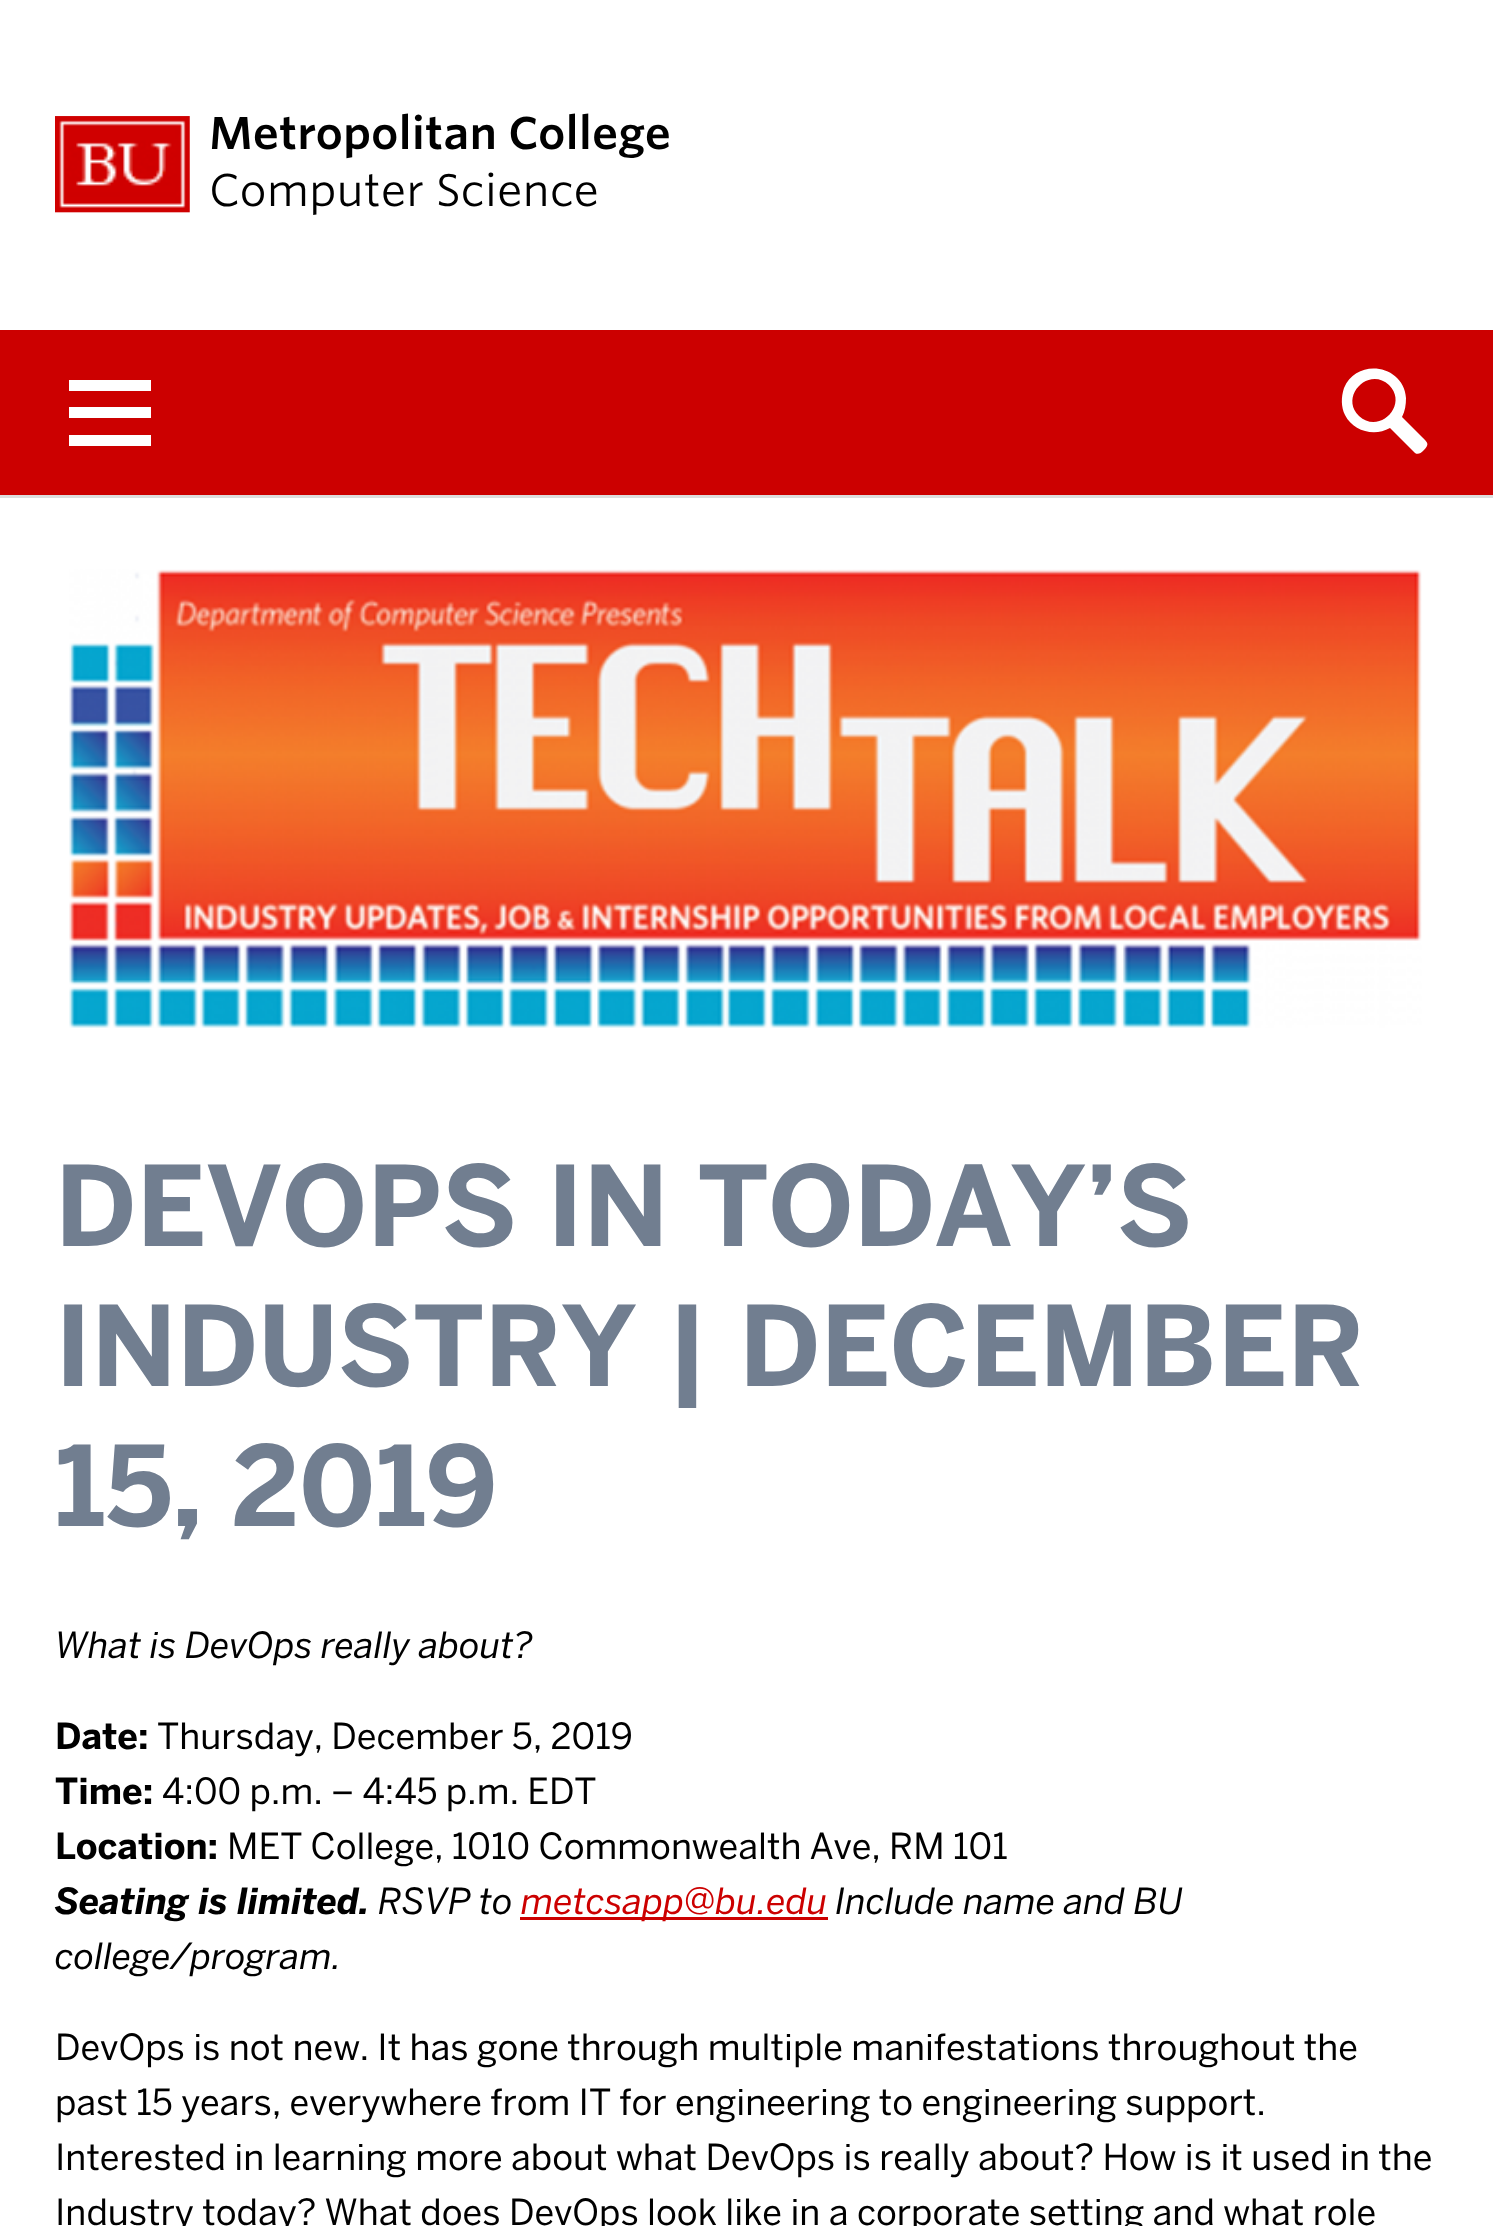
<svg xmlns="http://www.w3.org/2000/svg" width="1493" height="2226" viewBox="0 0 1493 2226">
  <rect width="100%" height="100%" fill="rgb(255,255,255)"/>
  <rect x="0" y="495" width="1493" height="3" fill="rgb(221,221,221)"/>
  <image x="55" y="116" width="135" height="97" href="pic1.png"/>
  <text x="209" y="149" font-family="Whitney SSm" font-size="44" font-weight="600" fill="rgb(0,0,0)">Metropolitan College</text>
  <text x="209" y="206" font-family="Whitney SSm" font-size="44" fill="rgb(0,0,0)">Computer Science</text>
  <rect x="0" y="330" width="1493" height="165" fill="rgb(204,0,0)"/>
  <rect x="69" y="407" width="82" height="11" fill="rgb(255,255,255)"/>
  <rect x="69" y="380" width="82" height="11" fill="rgb(255,255,255)"/>
  <rect x="69" y="435" width="82" height="11" fill="rgb(255,255,255)"/>
  <path d="M1402 417C1405 411 1406 405 1406 398C1404 365 1357 357 1344 388C1341 397 1341 407 1345 415C1353 431 1374 437 1390 428L1415 453C1418 455 1421 453 1423 451C1430 444 1428 443 1422 437ZM1359 416C1339 396 1369 366 1389 385C1409 405 1379 435 1359 416Z" fill="rgb(255,255,255)"/>
  <image x="69" y="569" width="1353" height="459" href="pic2.png"/>
  <g font-family="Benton" font-size="110" font-weight="bold" fill="rgb(113,126,144)">
    <text>
      <tspan x="55" y="1246">DEVOPS IN TODAY’S</tspan>
      <tspan x="55" y="1386">INDUSTRY | DECEMBER</tspan>
      <tspan x="55" y="1526">15, 2019</tspan>
    </text>
  </g>
  <text x="55" y="1658" font-family="Benton" font-size="35.75" font-style="italic" fill="rgb(0,0,0)">What is DevOps really about?</text>
  <text x="55" y="1749" font-family="Benton" font-size="35.75" font-weight="bold" fill="rgb(0,0,0)">Date:</text>
  <text x="157" y="1749" font-family="Benton" font-size="35.75" fill="rgb(0,0,0)">Thursday, December 5, 2019</text>
  <text x="55" y="1804" font-family="Benton" font-size="35.75" font-weight="bold" fill="rgb(0,0,0)">Time:</text>
  <text x="162" y="1804" font-family="Benton" font-size="35.75" fill="rgb(0,0,0)">4:00 p.m. – 4:45 p.m. EDT</text>
  <text x="55" y="1859" font-family="Benton" font-size="35.75" font-weight="bold" fill="rgb(0,0,0)">Location:</text>
  <text x="227" y="1859" font-family="Benton" font-size="35.75" fill="rgb(0,0,0)">MET College, 1010 Commonwealth Ave, RM 101</text>
  <text x="55" y="1914" font-family="Benton" font-size="35.75" font-weight="bold" font-style="italic" fill="rgb(0,0,0)">Seating is limited.</text>
  <text x="378" y="1914" font-family="Benton" font-size="35.75" font-style="italic" fill="rgb(0,0,0)">RSVP to</text>
  <rect x="520" y="1917" width="308" height="3" fill="rgb(204,0,0)"/>
  <text x="521" y="1914" font-family="Benton" font-size="35.75" font-style="italic" fill="rgb(204,0,0)">metcsapp@bu.edu</text>
  <g font-family="Benton" font-size="35.75" font-style="italic" fill="rgb(0,0,0)">
    <text x="835" y="1914">Include name and BU</text>
    <text x="55" y="1969">college/program.</text>
  </g>
  <g font-family="Benton" font-size="35.75" fill="rgb(0,0,0)">
    <text>
      <tspan x="55" y="2060">DevOps is not new. It has gone through multiple manifestations throughout the</tspan>
      <tspan x="55" y="2115">past 15 years, everywhere from IT for engineering to engineering support.</tspan>
      <tspan x="55" y="2170">Interested in learning more about what DevOps is really about? How is it used in the</tspan>
      <tspan x="55" y="2225">Industry today? What does DevOps look like in a corporate setting and what role</tspan>
    </text>
  </g>
</svg>
